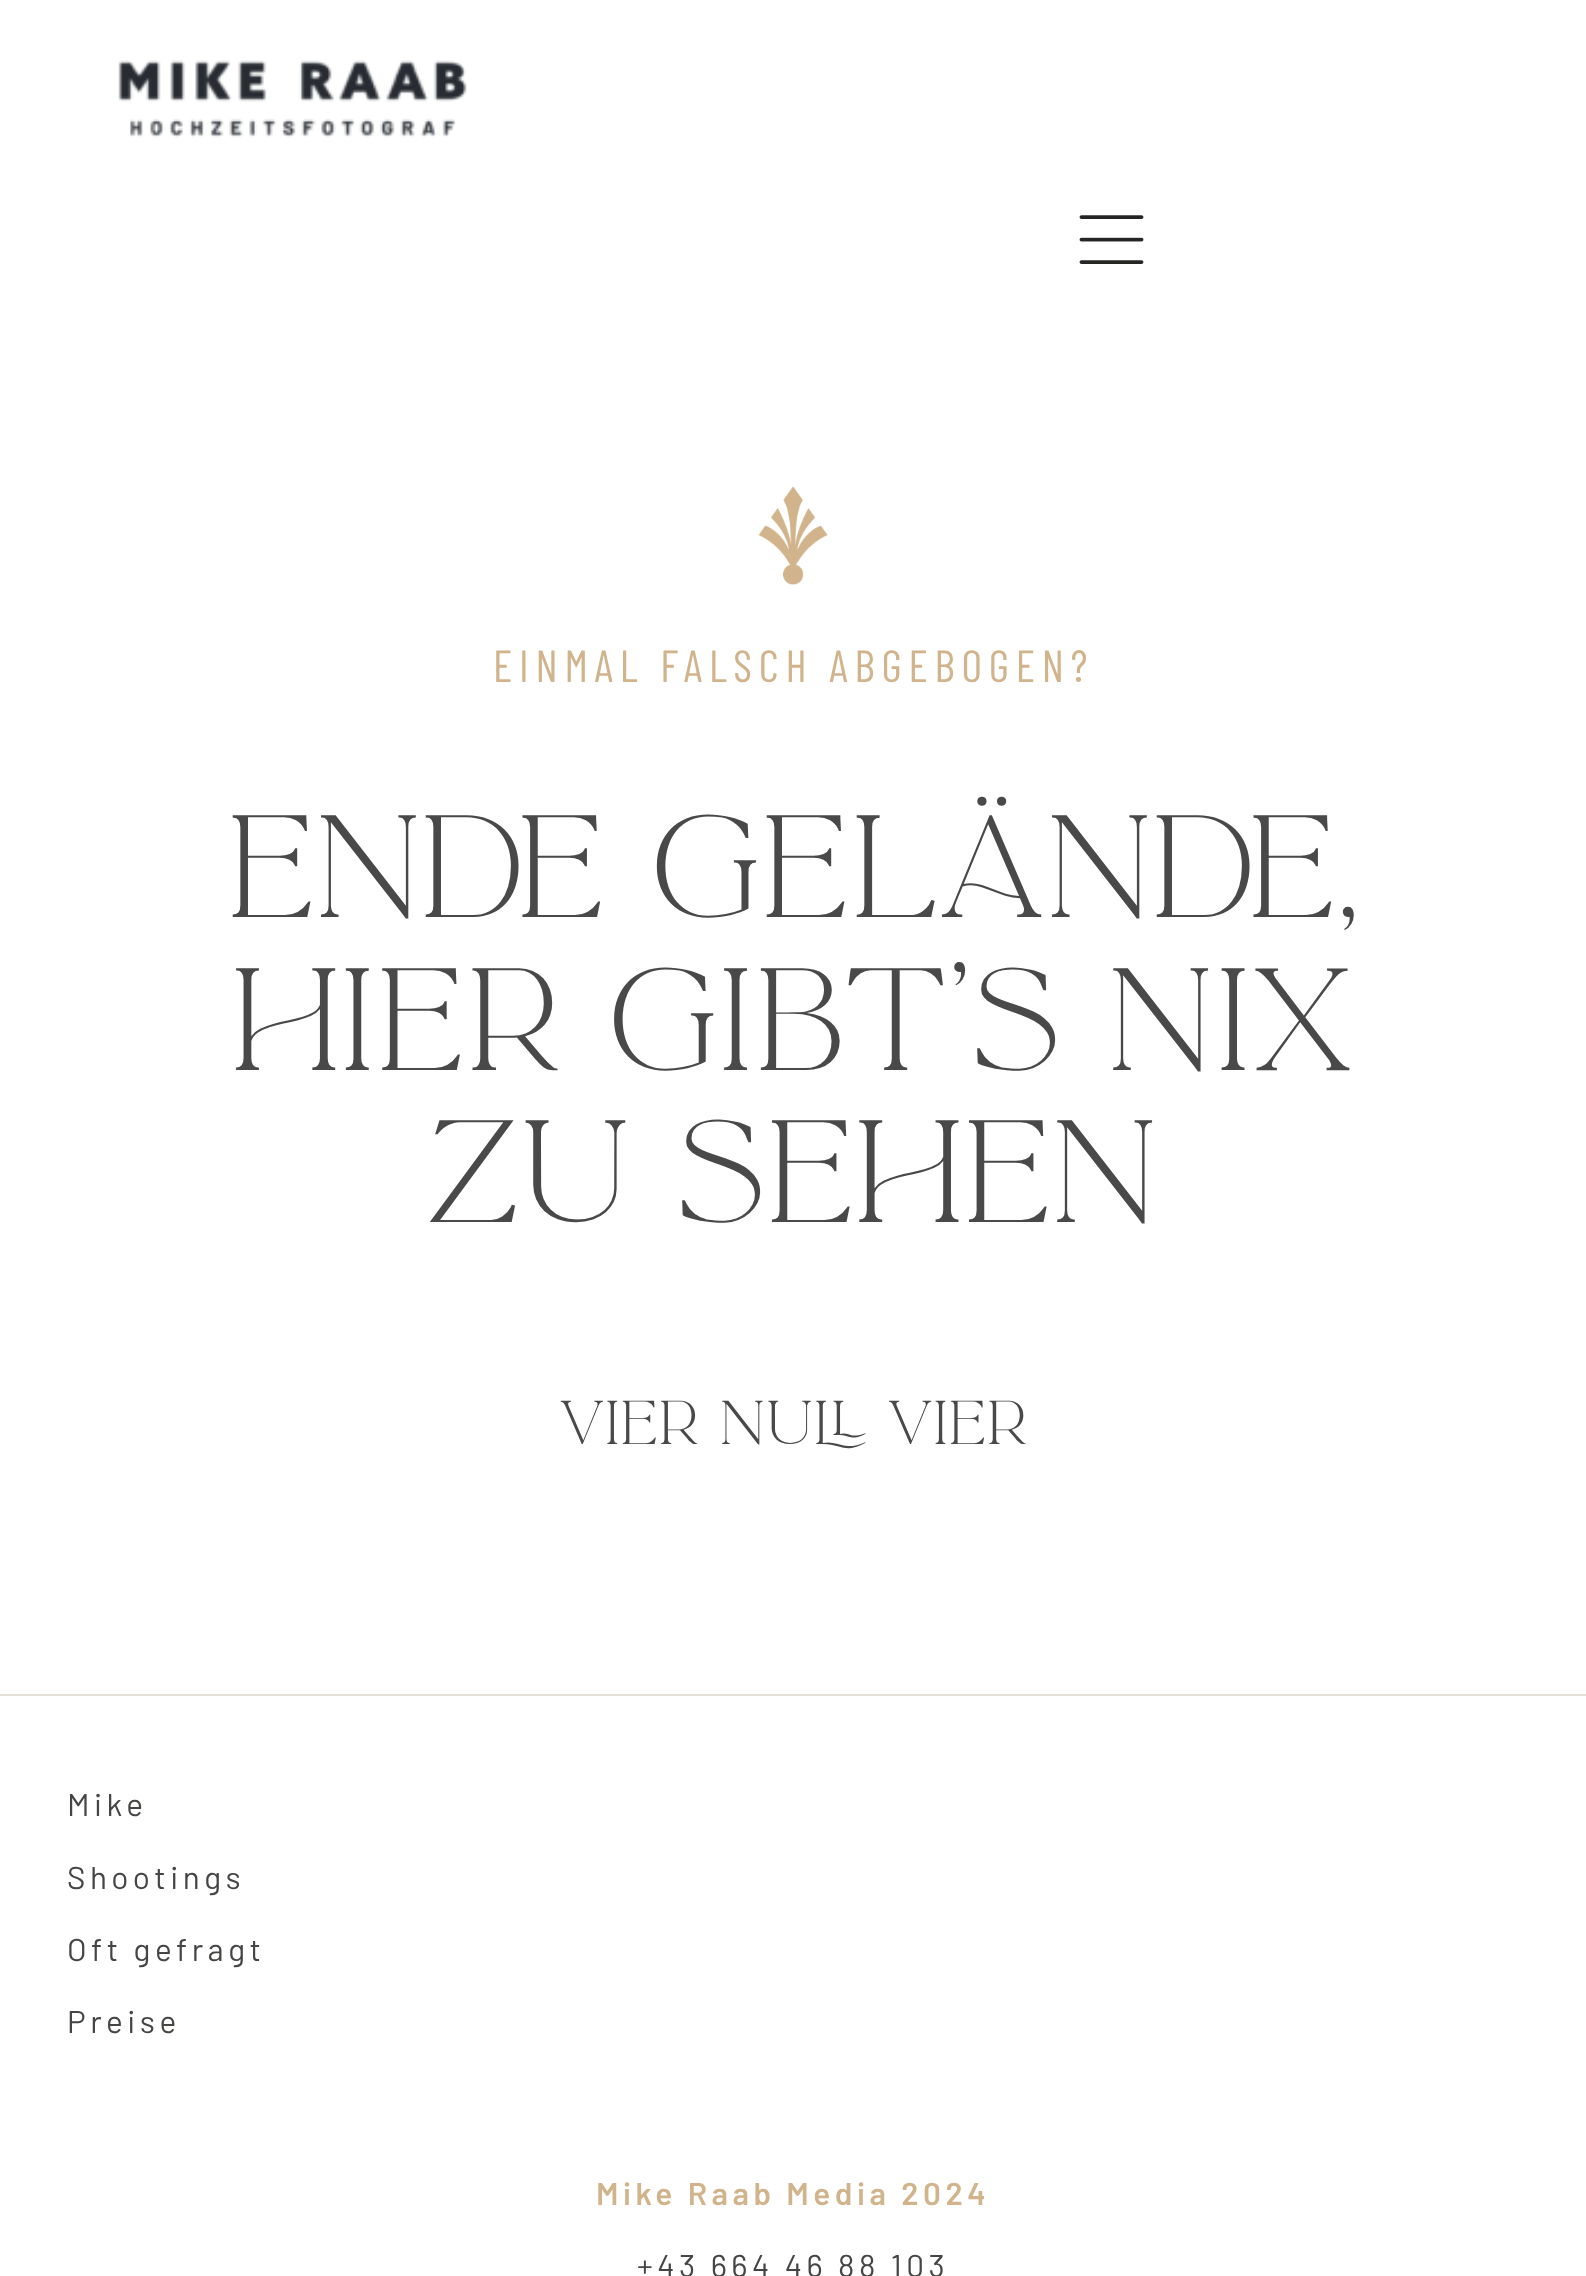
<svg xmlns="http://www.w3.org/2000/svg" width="1586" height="2276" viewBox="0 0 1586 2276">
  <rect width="100%" height="100%" fill="rgb(255,255,255)"/>
  <image x="118" y="60" width="349" height="78" href="pic1.png"/>
  <image x="1079" y="215" width="65" height="49" href="pic2.png"/>
  <image x="758" y="486" width="70" height="99" href="pic3.png"/>
  <text x="493" y="682" font-family="Barlow Condensed" font-size="45" letter-spacing="6.75" fill="rgb(210,180,140)">EINMAL FALSCH ABGEBOGEN?</text>
  <g font-family="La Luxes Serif" font-size="127.1" fill="rgb(73,73,73)">
    <text x="226" y="917">ENDE GELÄNDE,</text>
    <text x="232" y="1070">HIER GIBT’S NIX</text>
    <text x="427" y="1222">ZU SEHEN</text>
  </g>
  <text x="559" y="1444" font-family="La Luxes Serif" font-size="54" fill="rgb(73,73,73)">VIER NULL VIER</text>
  <rect x="0" y="1694" width="1586" height="2" fill="rgb(229,224,214)"/>
  <g font-family="Barlow" font-size="31.5" letter-spacing="4.5" fill="rgb(69,69,67)">
    <text x="67" y="1816">Mike</text>
    <text x="67" y="1889">Shootings</text>
    <text x="67" y="1961">Oft gefragt</text>
    <text x="67" y="2033">Preise</text>
  </g>
  <text x="596" y="2205" font-family="Barlow" font-size="31.5" font-weight="600" letter-spacing="4.5" fill="rgb(210,180,140)">Mike Raab Media 2024</text>
  <text x="637" y="2277" font-family="Barlow" font-size="31.5" letter-spacing="4.5" fill="rgb(69,69,67)">+43 664 46 88 103</text>
</svg>
